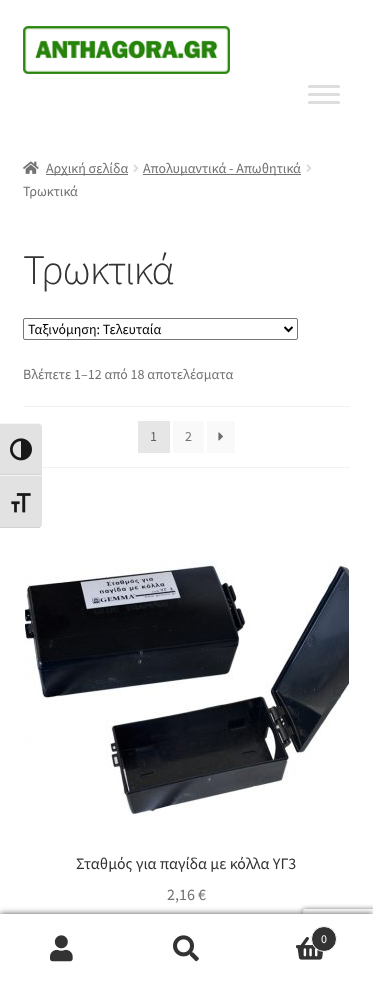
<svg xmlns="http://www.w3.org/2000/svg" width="373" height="983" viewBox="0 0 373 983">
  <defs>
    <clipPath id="clip1"><path d="M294 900H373V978H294ZM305 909H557C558 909 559 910 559 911V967C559 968 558 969 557 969H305C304 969 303 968 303 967V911C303 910 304 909 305 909Z" clip-rule="evenodd"/></clipPath>
  </defs>
  <rect width="100%" height="100%" fill="rgb(255,255,255)"/>
  <path d="M0 423H38C40 423 42 425 42 427V475H0Z" fill="rgb(226,226,226)"/>
  <path d="M0 423V424H38C40 424 42 425 42 427C42 425 40 423 38 423Z" fill="rgb(245,245,245)"/>
  <rect x="0" y="474" width="42" height="1" fill="rgb(210,210,210)"/>
  <image x="10" y="438" width="22" height="23" href="pic1.png"/>
  <path d="M0 475H42V524C42 526 40 528 38 528H0Z" fill="rgb(226,226,226)"/>
  <rect x="0" y="475" width="42" height="1" fill="rgb(245,245,245)"/>
  <path d="M0 527V528H38C40 528 42 526 42 524C42 526 40 527 38 527Z" fill="rgb(210,210,210)"/>
  <image x="11" y="493" width="20" height="20" href="pic2.png"/>
  <image x="23" y="26" width="207" height="48" href="pic3.png"/>
  <rect x="308" y="85" width="32" height="3" rx="1.5" fill="rgb(221,221,221)"/>
  <rect x="308" y="93" width="32" height="3" rx="1.5" fill="rgb(221,221,221)"/>
  <rect x="308" y="101" width="32" height="3" rx="1.5" fill="rgb(221,221,221)"/>
  <image x="23" y="161" width="16" height="13" href="pic4.png"/>
  <rect x="46" y="174" width="82" height="1" fill="rgb(114,114,114)"/>
  <text x="46" y="173" font-family="Source Sans Pro" font-size="14" fill="rgb(114,114,114)">Αρχική σελίδα</text>
  <image x="133" y="164" width="6" height="8" href="pic5.png"/>
  <rect x="143" y="174" width="158" height="1" fill="rgb(114,114,114)"/>
  <text x="143" y="173" font-family="Source Sans Pro" font-size="14" fill="rgb(114,114,114)">Απολυμαντικά - Απωθητικά</text>
  <image x="306" y="164" width="6" height="8" href="pic5.png"/>
  <text x="23" y="196" font-family="Source Sans Pro" font-size="14" fill="rgb(114,114,114)">Τρωκτικά</text>
  <text x="23" y="284" font-family="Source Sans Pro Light" font-size="42" font-weight="300" letter-spacing="-1" fill="rgb(51,51,51)">Τρωκτικά</text>
  <rect x="23.5" y="318.5" width="274" height="21" rx="1.5" fill="none" stroke="rgb(118,118,118)"/>
  <path d="M284.5 327L288.5 331L292.5 327" fill="none" stroke="rgb(0,0,0)" stroke-width="2"/>
  <text x="28" y="334" font-family="Source Sans Pro" font-size="14" fill="rgb(0,0,0)">Ταξινόμηση: Τελευταία</text>
  <text x="23" y="379" font-family="Source Sans Pro" font-size="14" fill="rgb(114,114,114)">Βλέπετε 1–12 από 18 αποτελέσματα</text>
  <rect x="23" y="406" width="327" height="1" fill="rgb(242,242,242)"/>
  <rect x="42" y="467" width="308" height="1" fill="rgb(242,242,242)"/>
  <rect x="138" y="421" width="32" height="32" fill="rgb(230,230,230)"/>
  <text x="150" y="441" font-family="Source Sans Pro" font-size="14" fill="rgb(99,99,99)">1</text>
  <rect x="173" y="421" width="31" height="32" fill="rgb(249,249,249)"/>
  <text x="185" y="441" font-family="Source Sans Pro" font-size="14" fill="rgb(114,114,114)">2</text>
  <rect x="207" y="421" width="28" height="32" fill="rgb(249,249,249)"/>
  <image x="218" y="432" width="5" height="9" href="pic6.png"/>
  <image x="25" y="560" width="324" height="256" href="pic7.png"/>
  <text x="76" y="869" font-family="Source Sans Pro" font-size="16" fill="rgb(51,51,51)">Σταθμός για παγίδα με κόλλα ΥΓ3</text>
  <text x="167" y="900" font-family="Source Sans Pro" font-size="16" fill="rgb(114,114,114)">2,16 €</text>
  <rect x="0" y="914" width="373" height="69" fill="rgba(0,0,0,0.7)" filter="blur(3px)"/>
  <g clip-path="url(#clip1)">
    <rect x="303" y="909" width="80" height="60" rx="2" fill="rgb(128,128,128)" filter="blur(2.5px)"/>
  </g>
  <rect x="0" y="914" width="373" height="1" fill="rgb(255,255,255)"/>
  <rect x="0" y="915" width="373" height="68" fill="rgb(255,255,255)"/>
  <image x="50" y="935" width="23" height="27" href="pic8.png"/>
  <image x="173" y="935" width="26" height="27" href="pic9.png"/>
  <image x="296" y="937" width="28" height="23" href="pic10.png"/>
  <circle cx="324" cy="939" r="12.5" fill="rgb(51,51,51)" stroke="rgb(255,255,255)"/>
  <text x="321" y="943" font-family="Source Sans Pro" font-size="12" fill="rgb(255,255,255)">0</text>
</svg>
